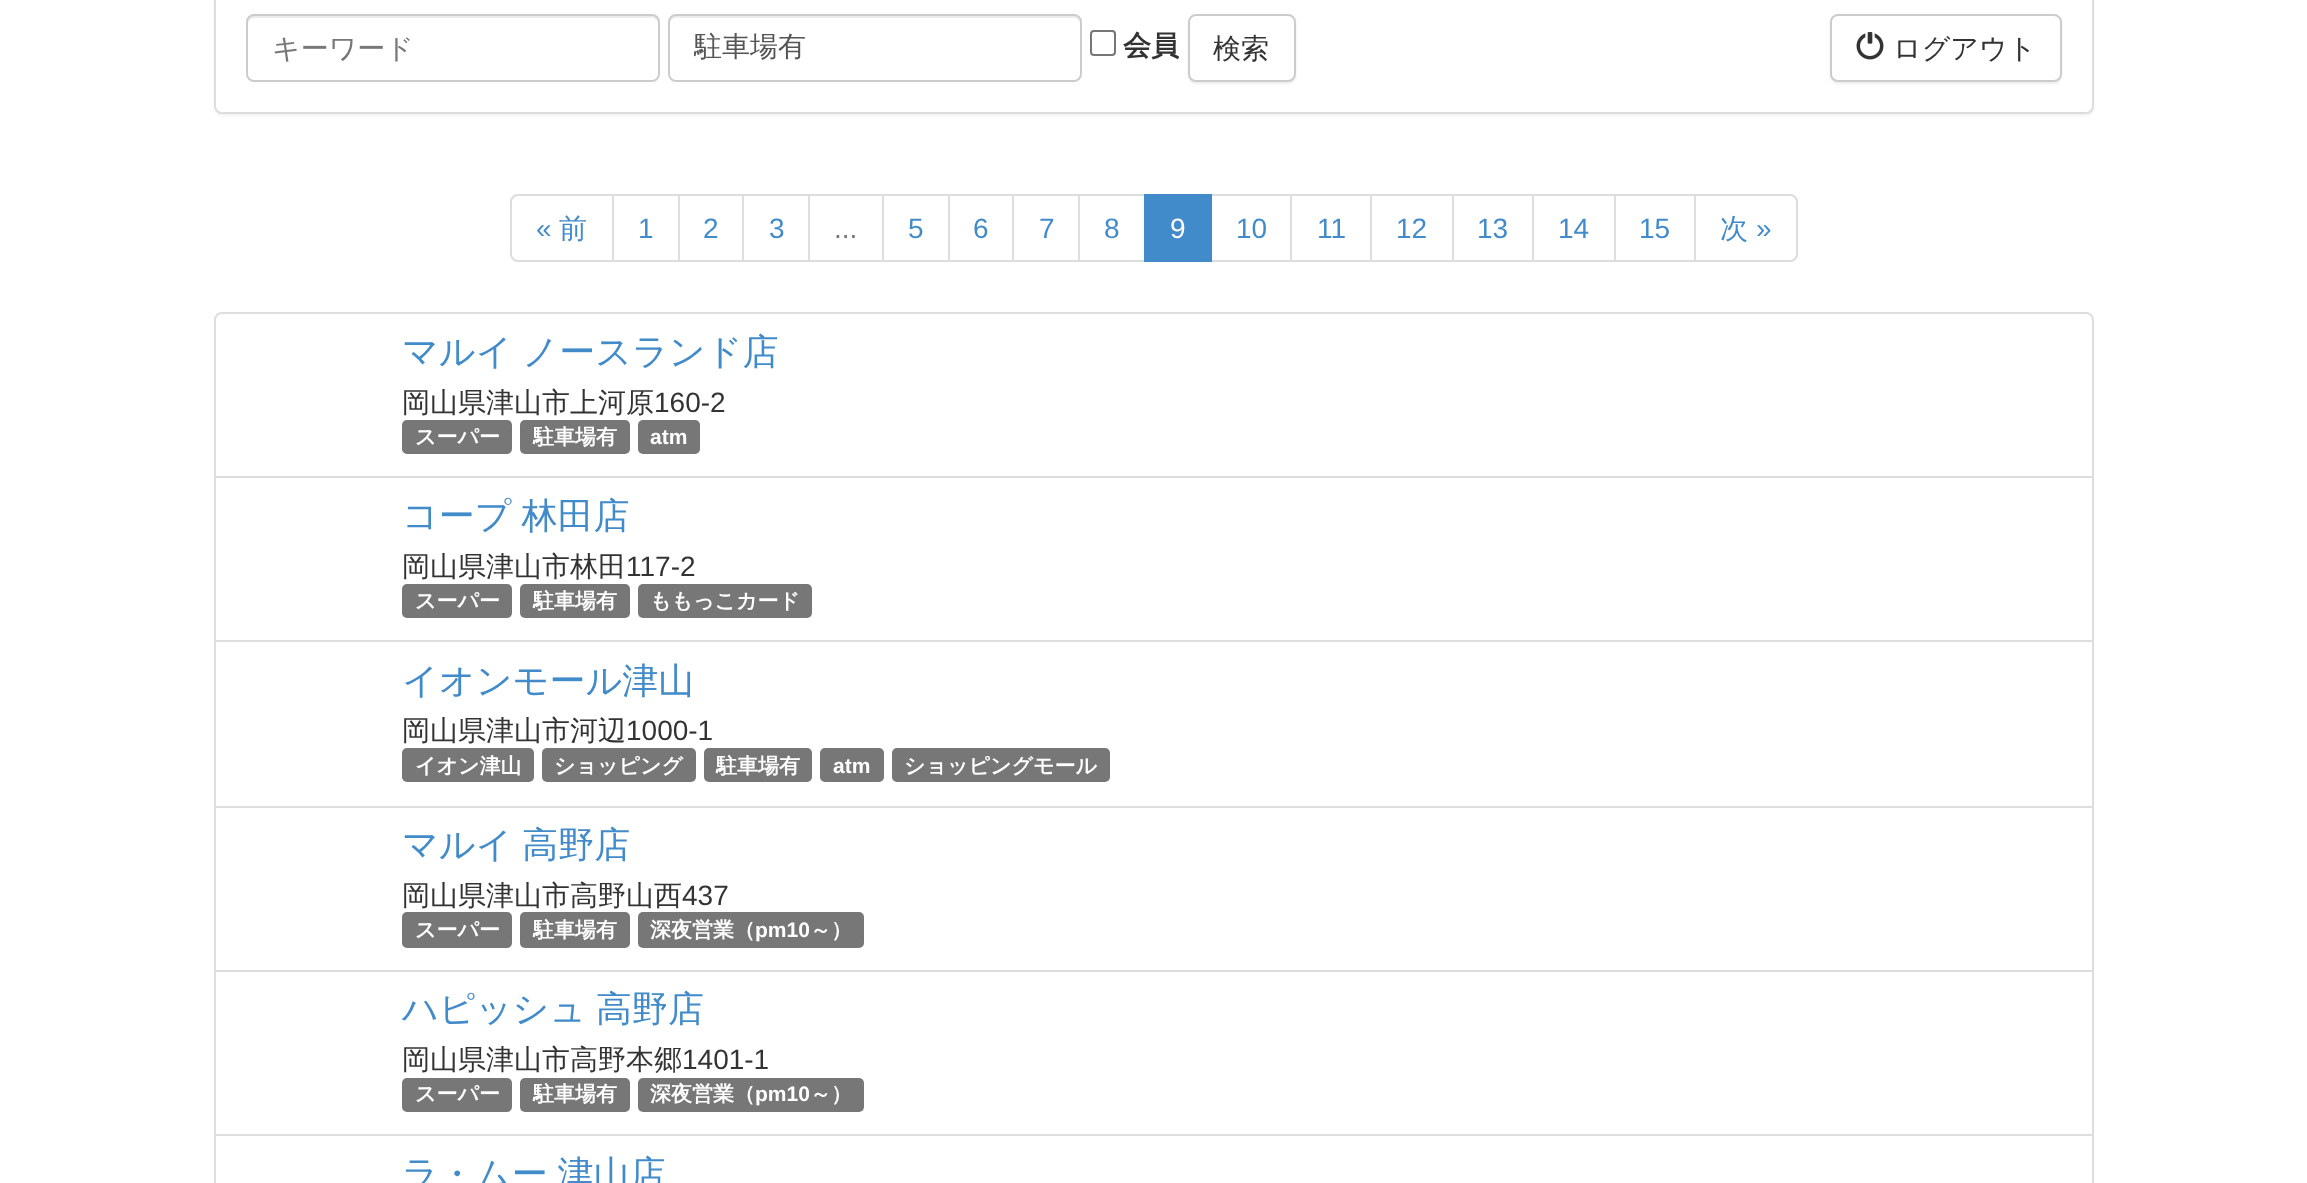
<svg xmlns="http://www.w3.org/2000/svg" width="2307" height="1183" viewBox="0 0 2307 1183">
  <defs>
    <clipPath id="clip1"><rect x="694" y="30" width="362" height="36"/></clipPath>
  </defs>
  <rect width="100%" height="100%" fill="rgb(255,255,255)"/>
  <rect x="214" y="-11" width="1880" height="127" rx="8" fill="rgba(0,0,0,0.05)" filter="blur(1px)"/>
  <rect x="215" y="-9" width="1878" height="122" rx="7" fill="rgb(255,255,255)" stroke="rgb(221,221,221)" stroke-width="2"/>
  <path d="M254 18H652C655 18 658 21 658 24C658 20 657 16 652 16H254C249 16 248 20 248 24C248 21 251 18 254 18Z" fill="rgb(236,236,236)"/>
  <rect x="247" y="15" width="412" height="66" rx="7" fill="none" stroke="rgb(204,204,204)" stroke-width="2"/>
  <text x="272" y="58" font-family="WenQuanYi Zen Hei" font-size="28" font-weight="500" fill="rgb(119,119,119)">キーワード</text>
  <path d="M676 18H1074C1077 18 1080 21 1080 24C1080 20 1079 16 1074 16H676C671 16 670 20 670 24C670 21 673 18 676 18Z" fill="rgb(236,236,236)"/>
  <rect x="669" y="15" width="412" height="66" rx="7" fill="none" stroke="rgb(204,204,204)" stroke-width="2"/>
  <g clip-path="url(#clip1)">
    <text x="694" y="56" font-family="WenQuanYi Zen Hei" font-size="28" font-weight="500" fill="rgb(85,85,85)">駐車場有</text>
  </g>
  <rect x="1091" y="31" width="24" height="24" rx="3" fill="none" stroke="rgb(118,118,118)" stroke-width="2"/>
  <text x="1123" y="55" font-family="WenQuanYi Zen Hei" font-size="28" font-weight="bold" fill="rgb(51,51,51)">会員</text>
  <rect x="1188" y="16" width="108" height="68" rx="8" fill="rgba(0,0,0,0.07)" filter="blur(1px)"/>
  <rect x="1189" y="15" width="106" height="66" rx="7" fill="rgb(255,255,255)" stroke="rgb(204,204,204)" stroke-width="2"/>
  <text x="1213" y="58" font-family="WenQuanYi Zen Hei" font-size="28" font-weight="500" fill="rgb(51,51,51)">検索</text>
  <rect x="1830" y="16" width="232" height="68" rx="8" fill="rgba(0,0,0,0.07)" filter="blur(1px)"/>
  <rect x="1831" y="15" width="230" height="66" rx="7" fill="rgb(255,255,255)" stroke="rgb(204,204,204)" stroke-width="2"/>
  <image x="1856" y="32" width="28" height="28" href="pic1.png"/>
  <text x="1893" y="58" font-family="WenQuanYi Zen Hei" font-size="28" font-weight="500" fill="rgb(51,51,51)">ログアウト</text>
  <path d="M518 195H613V261H518C514 261 511 258 511 254V202C511 198 514 195 518 195Z" fill="none" stroke="rgb(221,221,221)" stroke-width="2"/>
  <text x="536" y="238" font-family="Liberation Sans" font-size="28" fill="rgb(66,139,202)">«</text>
  <text x="559" y="238" font-family="WenQuanYi Zen Hei" font-size="28" font-weight="500" fill="rgb(66,139,202)">前</text>
  <rect x="613" y="195" width="66" height="66" fill="none" stroke="rgb(221,221,221)" stroke-width="2"/>
  <text x="638" y="238" font-family="Liberation Sans" font-size="28" fill="rgb(66,139,202)">1</text>
  <rect x="679" y="195" width="64" height="66" fill="none" stroke="rgb(221,221,221)" stroke-width="2"/>
  <text x="703" y="238" font-family="Liberation Sans" font-size="28" fill="rgb(66,139,202)">2</text>
  <rect x="743" y="195" width="66" height="66" fill="none" stroke="rgb(221,221,221)" stroke-width="2"/>
  <text x="769" y="238" font-family="Liberation Sans" font-size="28" fill="rgb(66,139,202)">3</text>
  <rect x="809" y="195" width="74" height="66" fill="none" stroke="rgb(221,221,221)" stroke-width="2"/>
  <text x="834" y="238" font-family="Liberation Sans" font-size="28" fill="rgb(119,119,119)">...</text>
  <rect x="883" y="195" width="66" height="66" fill="none" stroke="rgb(221,221,221)" stroke-width="2"/>
  <text x="908" y="238" font-family="Liberation Sans" font-size="28" fill="rgb(66,139,202)">5</text>
  <rect x="949" y="195" width="64" height="66" fill="none" stroke="rgb(221,221,221)" stroke-width="2"/>
  <text x="973" y="238" font-family="Liberation Sans" font-size="28" fill="rgb(66,139,202)">6</text>
  <rect x="1013" y="195" width="66" height="66" fill="none" stroke="rgb(221,221,221)" stroke-width="2"/>
  <text x="1039" y="238" font-family="Liberation Sans" font-size="28" fill="rgb(66,139,202)">7</text>
  <rect x="1079" y="195" width="66" height="66" fill="none" stroke="rgb(221,221,221)" stroke-width="2"/>
  <text x="1104" y="238" font-family="Liberation Sans" font-size="28" fill="rgb(66,139,202)">8</text>
  <rect x="1211" y="195" width="80" height="66" fill="none" stroke="rgb(221,221,221)" stroke-width="2"/>
  <rect x="1144" y="194" width="68" height="68" fill="rgb(66,139,202)"/>
  <text x="1170" y="238" font-family="Liberation Sans" font-size="28" fill="rgb(255,255,255)">9</text>
  <text x="1236" y="238" font-family="Liberation Sans" font-size="28" fill="rgb(66,139,202)">10</text>
  <rect x="1291" y="195" width="80" height="66" fill="none" stroke="rgb(221,221,221)" stroke-width="2"/>
  <text x="1317" y="238" font-family="Liberation Sans" font-size="28" fill="rgb(66,139,202)">11</text>
  <rect x="1371" y="195" width="82" height="66" fill="none" stroke="rgb(221,221,221)" stroke-width="2"/>
  <text x="1396" y="238" font-family="Liberation Sans" font-size="28" fill="rgb(66,139,202)">12</text>
  <rect x="1453" y="195" width="80" height="66" fill="none" stroke="rgb(221,221,221)" stroke-width="2"/>
  <text x="1477" y="238" font-family="Liberation Sans" font-size="28" fill="rgb(66,139,202)">13</text>
  <rect x="1533" y="195" width="82" height="66" fill="none" stroke="rgb(221,221,221)" stroke-width="2"/>
  <text x="1558" y="238" font-family="Liberation Sans" font-size="28" fill="rgb(66,139,202)">14</text>
  <rect x="1615" y="195" width="80" height="66" fill="none" stroke="rgb(221,221,221)" stroke-width="2"/>
  <text x="1639" y="238" font-family="Liberation Sans" font-size="28" fill="rgb(66,139,202)">15</text>
  <path d="M1695 195H1790C1794 195 1797 198 1797 202V254C1797 258 1794 261 1790 261H1695Z" fill="rgb(255,255,255)" stroke="rgb(221,221,221)" stroke-width="2"/>
  <text x="1720" y="238" font-family="WenQuanYi Zen Hei" font-size="28" font-weight="500" fill="rgb(66,139,202)">次</text>
  <text x="1756" y="238" font-family="Liberation Sans" font-size="28" fill="rgb(66,139,202)">»</text>
  <path d="M222 313H2086C2090 313 2093 316 2093 320V477H215V320C215 316 218 313 222 313Z" fill="none" stroke="rgb(221,221,221)" stroke-width="2"/>
  <text x="402" y="364" word-spacing="-1" font-family="WenQuanYi Zen Hei" font-size="36" font-weight="500" fill="rgb(66,139,202)">マルイ ノースランド店</text>
  <text x="402" y="412" font-family="WenQuanYi Zen Hei" font-size="28" font-weight="500" fill="rgb(51,51,51)">岡山県津山市上河原</text>
  <text x="654" y="412" font-family="Liberation Sans" font-size="28" fill="rgb(51,51,51)">160-2</text>
  <rect x="402" y="420" width="110" height="34" rx="5" fill="rgb(119,119,119)"/>
  <text x="415" y="444" font-family="WenQuanYi Zen Hei" font-size="21" font-weight="bold" fill="rgb(255,255,255)">スーパー</text>
  <rect x="520" y="420" width="110" height="34" rx="5" fill="rgb(119,119,119)"/>
  <text x="533" y="444" font-family="WenQuanYi Zen Hei" font-size="21" font-weight="bold" fill="rgb(255,255,255)">駐車場有</text>
  <rect x="638" y="420" width="62" height="34" rx="5" fill="rgb(119,119,119)"/>
  <text x="650" y="444" font-family="Liberation Sans" font-size="21" font-weight="bold" fill="rgb(255,255,255)">atm</text>
  <rect x="215" y="477" width="1878" height="164" fill="none" stroke="rgb(221,221,221)" stroke-width="2"/>
  <text x="402" y="528" word-spacing="-1" font-family="WenQuanYi Zen Hei" font-size="36" font-weight="500" fill="rgb(66,139,202)">コープ 林田店</text>
  <text x="402" y="576" font-family="WenQuanYi Zen Hei" font-size="28" font-weight="500" fill="rgb(51,51,51)">岡山県津山市林田</text>
  <text x="626" y="576" font-family="Liberation Sans" font-size="28" fill="rgb(51,51,51)">117-2</text>
  <rect x="402" y="584" width="110" height="34" rx="5" fill="rgb(119,119,119)"/>
  <text x="415" y="608" font-family="WenQuanYi Zen Hei" font-size="21" font-weight="bold" fill="rgb(255,255,255)">スーパー</text>
  <rect x="520" y="584" width="110" height="34" rx="5" fill="rgb(119,119,119)"/>
  <text x="533" y="608" font-family="WenQuanYi Zen Hei" font-size="21" font-weight="bold" fill="rgb(255,255,255)">駐車場有</text>
  <rect x="638" y="584" width="174" height="34" rx="5" fill="rgb(119,119,119)"/>
  <text x="650" y="608" font-family="WenQuanYi Zen Hei" font-size="21" font-weight="bold" fill="rgb(255,255,255)">ももっこカード</text>
  <rect x="215" y="641" width="1878" height="166" fill="none" stroke="rgb(221,221,221)" stroke-width="2"/>
  <text x="402" y="693" font-family="WenQuanYi Zen Hei" font-size="36" font-weight="500" fill="rgb(66,139,202)">イオンモール津山</text>
  <text x="402" y="740" font-family="WenQuanYi Zen Hei" font-size="28" font-weight="500" fill="rgb(51,51,51)">岡山県津山市河辺</text>
  <text x="626" y="740" font-family="Liberation Sans" font-size="28" fill="rgb(51,51,51)">1000-1</text>
  <rect x="402" y="748" width="132" height="34" rx="5" fill="rgb(119,119,119)"/>
  <text x="415" y="773" font-family="WenQuanYi Zen Hei" font-size="21" font-weight="bold" fill="rgb(255,255,255)">イオン津山</text>
  <rect x="542" y="748" width="154" height="34" rx="5" fill="rgb(119,119,119)"/>
  <text x="554" y="773" font-family="WenQuanYi Zen Hei" font-size="21" font-weight="bold" fill="rgb(255,255,255)">ショッピング</text>
  <rect x="704" y="748" width="108" height="34" rx="5" fill="rgb(119,119,119)"/>
  <text x="716" y="773" font-family="WenQuanYi Zen Hei" font-size="21" font-weight="bold" fill="rgb(255,255,255)">駐車場有</text>
  <rect x="820" y="748" width="64" height="34" rx="5" fill="rgb(119,119,119)"/>
  <text x="833" y="773" font-family="Liberation Sans" font-size="21" font-weight="bold" fill="rgb(255,255,255)">atm</text>
  <rect x="892" y="748" width="218" height="34" rx="5" fill="rgb(119,119,119)"/>
  <text x="904" y="773" font-family="WenQuanYi Zen Hei" font-size="21" font-weight="bold" fill="rgb(255,255,255)">ショッピングモール</text>
  <rect x="215" y="807" width="1878" height="164" fill="none" stroke="rgb(221,221,221)" stroke-width="2"/>
  <text x="402" y="857" word-spacing="-1" font-family="WenQuanYi Zen Hei" font-size="36" font-weight="500" fill="rgb(66,139,202)">マルイ 高野店</text>
  <text x="402" y="905" font-family="WenQuanYi Zen Hei" font-size="28" font-weight="500" fill="rgb(51,51,51)">岡山県津山市高野山西</text>
  <text x="682" y="905" font-family="Liberation Sans" font-size="28" fill="rgb(51,51,51)">437</text>
  <rect x="402" y="912" width="110" height="36" rx="5" fill="rgb(119,119,119)"/>
  <text x="415" y="937" font-family="WenQuanYi Zen Hei" font-size="21" font-weight="bold" fill="rgb(255,255,255)">スーパー</text>
  <rect x="520" y="912" width="110" height="36" rx="5" fill="rgb(119,119,119)"/>
  <text x="533" y="937" font-family="WenQuanYi Zen Hei" font-size="21" font-weight="bold" fill="rgb(255,255,255)">駐車場有</text>
  <rect x="638" y="912" width="226" height="36" rx="5" fill="rgb(119,119,119)"/>
  <text x="650" y="937" font-family="WenQuanYi Zen Hei" font-size="21" font-weight="bold" fill="rgb(255,255,255)">深夜営業（</text>
  <text x="755" y="937" font-family="Liberation Sans" font-size="21" font-weight="bold" fill="rgb(255,255,255)">pm10</text>
  <text x="810" y="937" font-family="WenQuanYi Zen Hei" font-size="21" font-weight="bold" fill="rgb(255,255,255)">～）</text>
  <rect x="215" y="971" width="1878" height="164" fill="none" stroke="rgb(221,221,221)" stroke-width="2"/>
  <text x="402" y="1021" word-spacing="-1" font-family="WenQuanYi Zen Hei" font-size="36" font-weight="500" fill="rgb(66,139,202)">ハピッシュ 高野店</text>
  <text x="402" y="1069" font-family="WenQuanYi Zen Hei" font-size="28" font-weight="500" fill="rgb(51,51,51)">岡山県津山市高野本郷</text>
  <text x="682" y="1069" font-family="Liberation Sans" font-size="28" fill="rgb(51,51,51)">1401-1</text>
  <rect x="402" y="1078" width="110" height="34" rx="5" fill="rgb(119,119,119)"/>
  <text x="415" y="1101" font-family="WenQuanYi Zen Hei" font-size="21" font-weight="bold" fill="rgb(255,255,255)">スーパー</text>
  <rect x="520" y="1078" width="110" height="34" rx="5" fill="rgb(119,119,119)"/>
  <text x="533" y="1101" font-family="WenQuanYi Zen Hei" font-size="21" font-weight="bold" fill="rgb(255,255,255)">駐車場有</text>
  <rect x="638" y="1078" width="226" height="34" rx="5" fill="rgb(119,119,119)"/>
  <text x="650" y="1101" font-family="WenQuanYi Zen Hei" font-size="21" font-weight="bold" fill="rgb(255,255,255)">深夜営業（</text>
  <text x="755" y="1101" font-family="Liberation Sans" font-size="21" font-weight="bold" fill="rgb(255,255,255)">pm10</text>
  <text x="810" y="1101" font-family="WenQuanYi Zen Hei" font-size="21" font-weight="bold" fill="rgb(255,255,255)">～）</text>
  <rect x="215" y="1135" width="1878" height="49" fill="none" stroke="rgb(221,221,221)" stroke-width="2"/>
  <text x="402" y="1186" word-spacing="-1" font-family="WenQuanYi Zen Hei" font-size="36" font-weight="500" fill="rgb(66,139,202)">ラ・ムー 津山店</text>
</svg>
